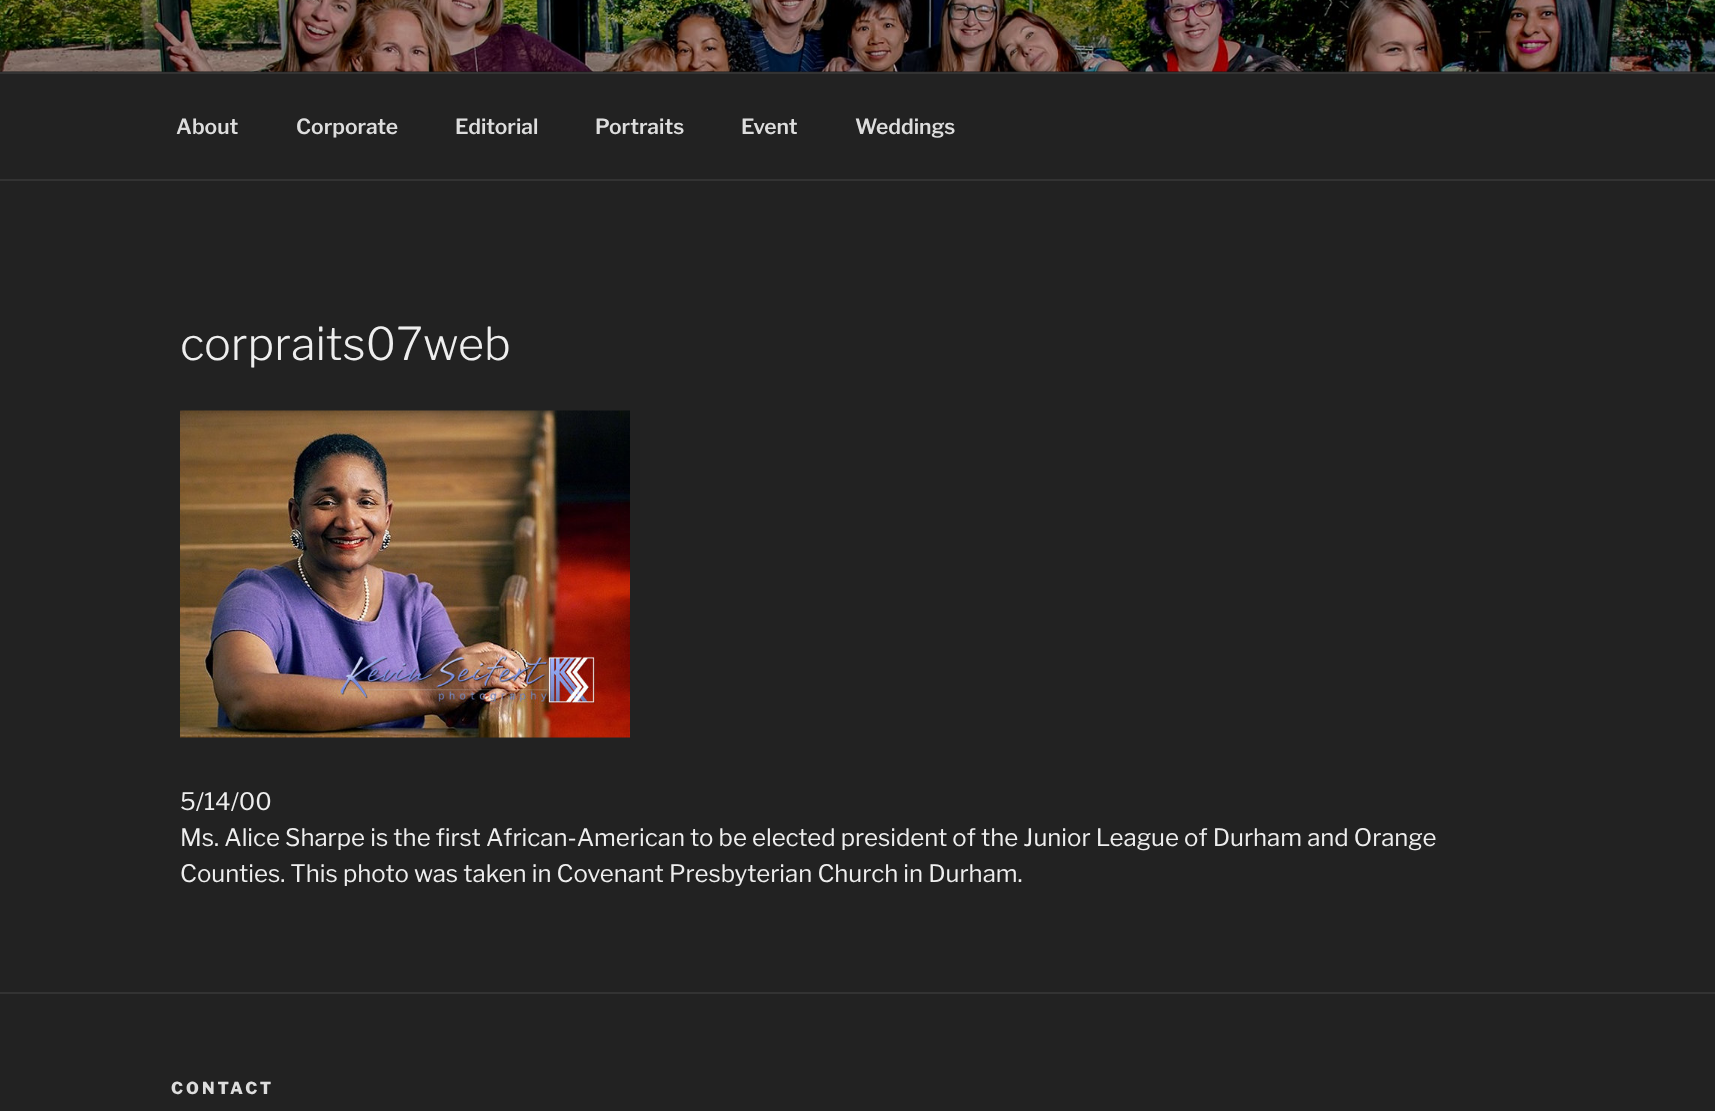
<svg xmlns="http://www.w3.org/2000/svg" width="1715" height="1111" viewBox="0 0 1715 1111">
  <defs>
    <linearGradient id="g1" gradientUnits="userSpaceOnUse" x1="858" y1="-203" x2="858" y2="72"><stop offset="0" stop-color="rgb(0,0,0)" stop-opacity="0"/><stop offset="0.75" stop-color="rgb(0,0,0)" stop-opacity="0.3"/><stop offset="1" stop-color="rgb(0,0,0)" stop-opacity="0.3"/></linearGradient>
  </defs>
  <rect width="100%" height="100%" fill="rgb(34,34,34)"/>
  <rect x="0" y="71" width="1715" height="1" fill="rgb(38,38,38)"/>
  <image x="0" y="0" width="1715" height="72" href="pic1.png"/>
  <rect x="0" y="0" width="1715" height="72" fill="url(#g1)"/>
  <rect x="0" y="72" width="1715" height="2" fill="rgb(51,51,51)"/>
  <rect x="0" y="179" width="1715" height="2" fill="rgb(51,51,51)"/>
  <g font-family="Libre Franklin" font-size="21" font-weight="600" fill="rgb(221,221,221)">
    <text x="176" y="134">About</text>
    <text x="296" y="134">Corporate</text>
    <text x="455" y="134">Editorial</text>
    <text x="595" y="134">Portraits</text>
    <text x="741" y="134">Event</text>
    <text x="855" y="134">Weddings</text>
  </g>
  <text x="180" y="360" font-family="Libre Franklin" font-size="45" font-weight="300" fill="rgb(238,238,238)">corpraits07web</text>
  <image x="180" y="410" width="450" height="328" href="pic2.png"/>
  <g font-family="Libre Franklin" font-size="24" fill="rgb(238,238,238)">
    <text>
      <tspan x="180" y="810">5/14/00</tspan>
      <tspan x="180" y="846">Ms. Alice Sharpe is the first African-American to be elected president of the Junior League of Durham and Orange</tspan>
      <tspan x="180" y="882">Counties. This photo was taken in Covenant Presbyterian Church in Durham.</tspan>
    </text>
  </g>
  <rect x="0" y="992" width="1715" height="2" fill="rgb(51,51,51)"/>
  <text x="171" y="1094" font-family="Libre Franklin" font-size="16.5" font-weight="800" letter-spacing="3" fill="rgb(221,221,221)">CONTACT</text>
</svg>
